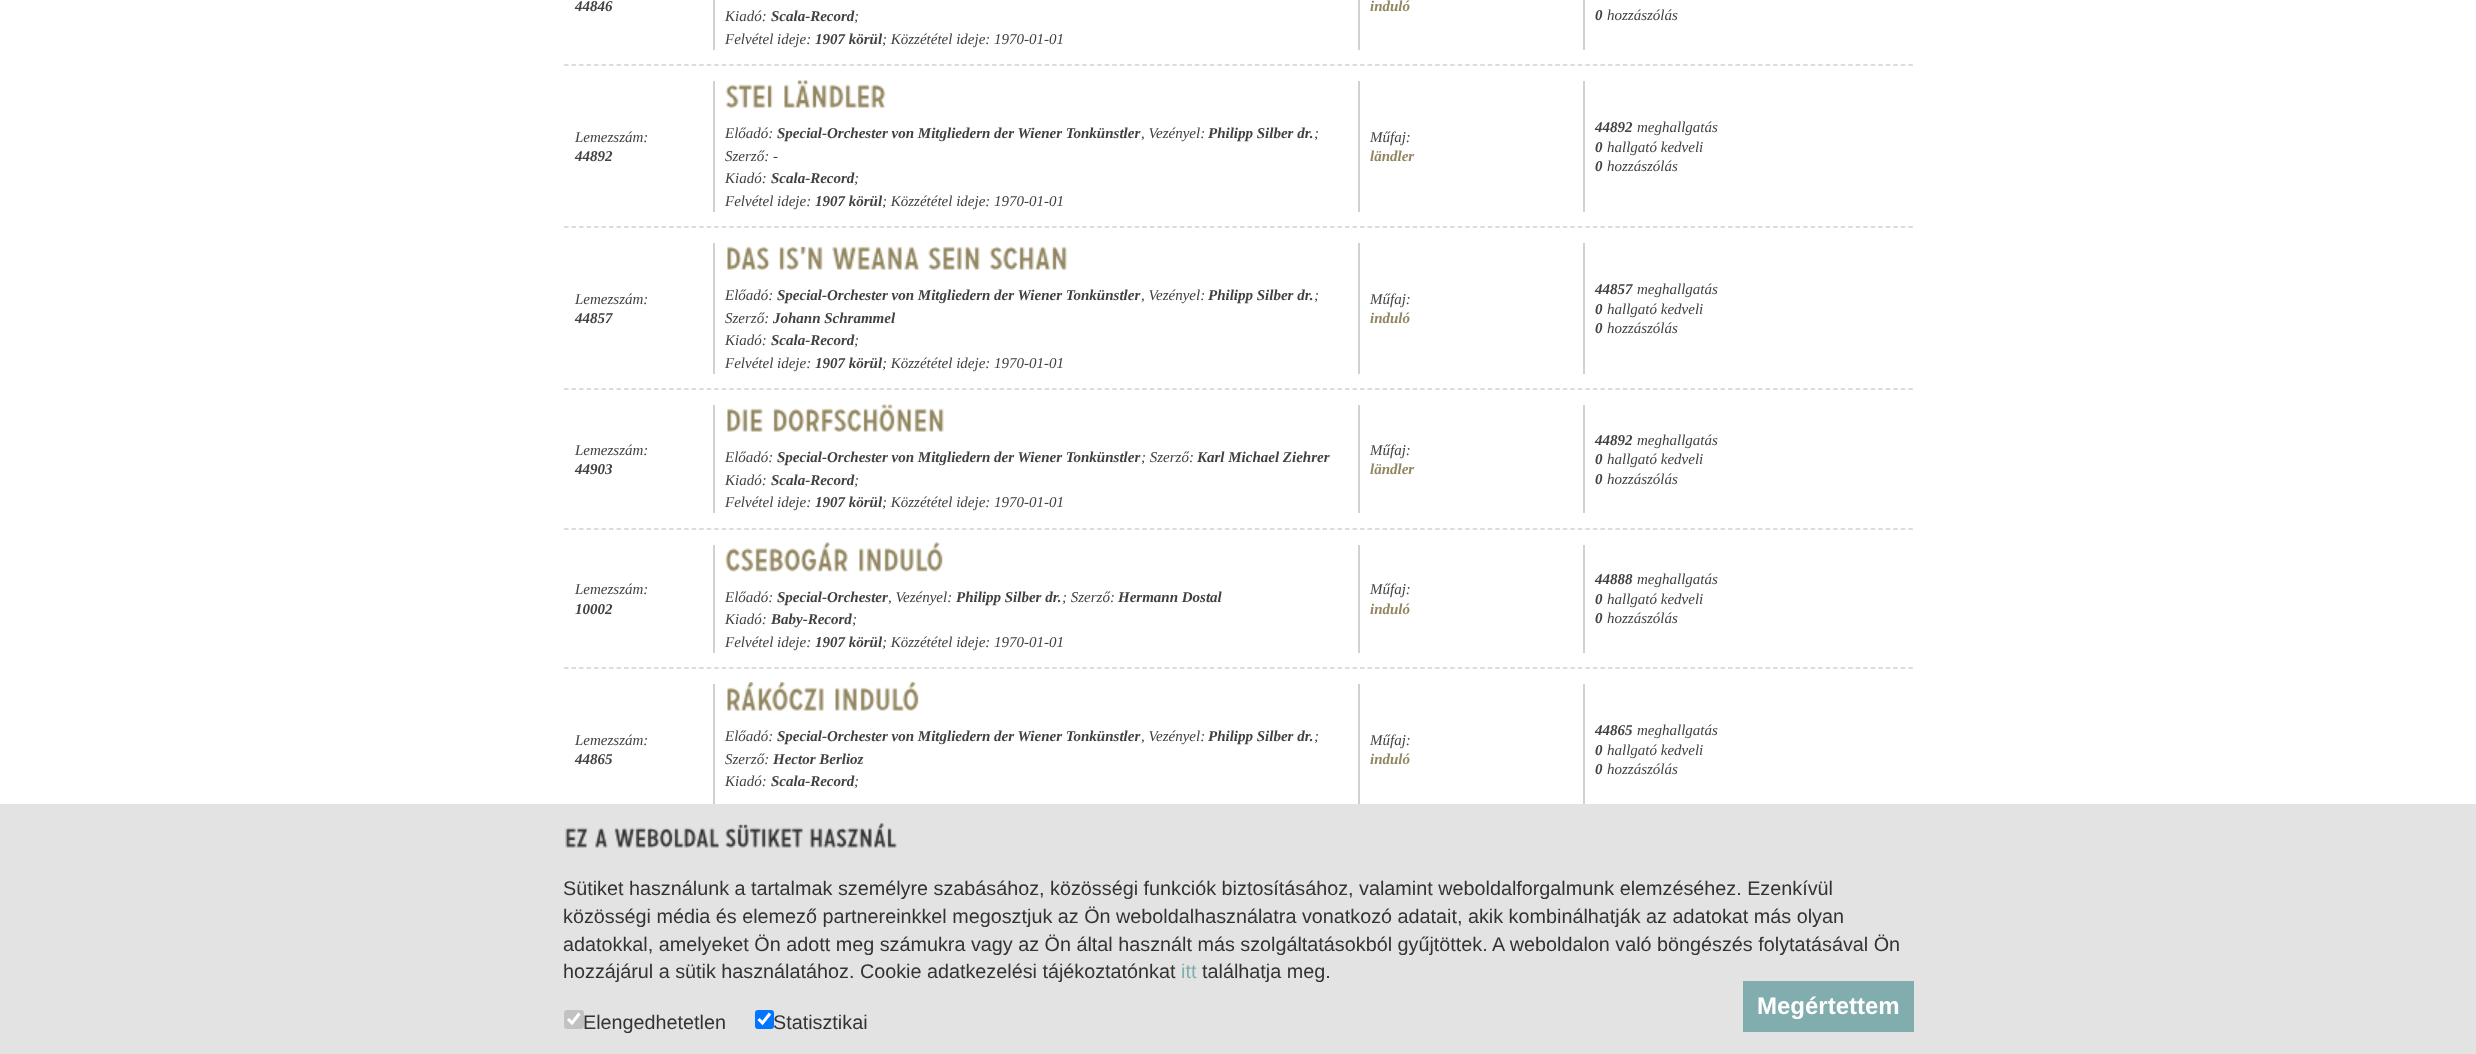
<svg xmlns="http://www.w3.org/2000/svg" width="2476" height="1054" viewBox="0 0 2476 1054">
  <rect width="100%" height="100%" fill="rgb(255,255,255)"/>
  <path d="M564 65H1914" fill="none" stroke="rgb(209,209,209)" stroke-width="1.5" stroke-dasharray="4.5 3.01"/>
  <rect x="713" y="0" width="2" height="50" fill="rgb(209,209,209)"/>
  <text x="575" y="11" font-family="Liberation Serif" font-size="15" font-weight="bold" font-style="italic" fill="rgb(65,65,65)">44846</text>
  <rect x="1583" y="0" width="2" height="50" fill="rgb(209,209,209)"/>
  <text x="1370" y="11" font-family="Liberation Serif" font-size="15" font-weight="bold" font-style="italic" fill="rgb(146,134,96)">induló</text>
  <rect x="1358" y="0" width="2" height="50" fill="rgb(209,209,209)"/>
  <text x="725" y="21" font-family="Liberation Serif" font-size="15" font-style="italic" fill="rgb(65,65,65)">Kiadó:</text>
  <text x="771" y="21" font-family="Liberation Serif" font-size="15" font-weight="bold" font-style="italic" fill="rgb(65,65,65)">Scala-Record</text>
  <g font-family="Liberation Serif" font-size="15" font-style="italic" fill="rgb(65,65,65)">
    <text x="854" y="21">;</text>
    <text x="725" y="44">Felvétel ideje:</text>
  </g>
  <text x="815" y="44" font-family="Liberation Serif" font-size="15" font-weight="bold" font-style="italic" fill="rgb(65,65,65)">1907 körül</text>
  <text x="882" y="44" font-family="Liberation Serif" font-size="15" font-style="italic" fill="rgb(65,65,65)">; Közzététel ideje: 1970-01-01</text>
  <text x="1595" y="20" font-family="Liberation Serif" font-size="15" font-weight="bold" font-style="italic" fill="rgb(65,65,65)">0</text>
  <text x="1607" y="20" font-family="Liberation Serif" font-size="15" font-style="italic" fill="rgb(65,65,65)">hozzászólás</text>
  <path d="M564 227H1914" fill="none" stroke="rgb(209,209,209)" stroke-width="1.5" stroke-dasharray="4.5 3.01"/>
  <rect x="713" y="81" width="2" height="131" fill="rgb(209,209,209)"/>
  <text x="575" y="142" font-family="Liberation Serif" font-size="15" font-style="italic" fill="rgb(65,65,65)">Lemezszám:</text>
  <text x="575" y="161" font-family="Liberation Serif" font-size="15" font-weight="bold" font-style="italic" fill="rgb(65,65,65)">44892</text>
  <rect x="1358" y="81" width="2" height="131" fill="rgb(209,209,209)"/>
  <image x="725" y="84" width="48" height="24" href="pic1.png"/>
  <image x="784" y="80" width="102" height="28" href="pic2.png"/>
  <text x="725" y="138" font-family="Liberation Serif" font-size="15" font-style="italic" fill="rgb(65,65,65)">Előadó:</text>
  <text x="777" y="138" font-family="Liberation Serif" font-size="15" font-weight="bold" font-style="italic" fill="rgb(65,65,65)">Special-Orchester von Mitgliedern der Wiener Tonkünstler</text>
  <text x="1141" y="138" font-family="Liberation Serif" font-size="15" font-style="italic" fill="rgb(65,65,65)">, Vezényel:</text>
  <text x="1208" y="138" font-family="Liberation Serif" font-size="15" font-weight="bold" font-style="italic" fill="rgb(65,65,65)">Philipp Silber dr.</text>
  <g font-family="Liberation Serif" font-size="15" font-style="italic" fill="rgb(65,65,65)">
    <text x="1314" y="138">;</text>
    <text>
      <tspan x="725" y="161">Szerző: -</tspan>
      <tspan x="725" y="183">Kiadó:</tspan>
    </text>
  </g>
  <text x="771" y="183" font-family="Liberation Serif" font-size="15" font-weight="bold" font-style="italic" fill="rgb(65,65,65)">Scala-Record</text>
  <g font-family="Liberation Serif" font-size="15" font-style="italic" fill="rgb(65,65,65)">
    <text x="854" y="183">;</text>
    <text x="725" y="206">Felvétel ideje:</text>
  </g>
  <text x="815" y="206" font-family="Liberation Serif" font-size="15" font-weight="bold" font-style="italic" fill="rgb(65,65,65)">1907 körül</text>
  <text x="882" y="206" font-family="Liberation Serif" font-size="15" font-style="italic" fill="rgb(65,65,65)">; Közzététel ideje: 1970-01-01</text>
  <rect x="1583" y="81" width="2" height="131" fill="rgb(209,209,209)"/>
  <text x="1370" y="142" font-family="Liberation Serif" font-size="15" font-style="italic" fill="rgb(65,65,65)">Műfaj:</text>
  <text x="1370" y="161" font-family="Liberation Serif" font-size="15" font-weight="bold" font-style="italic" fill="rgb(146,134,96)">ländler</text>
  <text x="1595" y="132" font-family="Liberation Serif" font-size="15" font-weight="bold" font-style="italic" fill="rgb(65,65,65)">44892</text>
  <text x="1637" y="132" font-family="Liberation Serif" font-size="15" font-style="italic" fill="rgb(65,65,65)">meghallgatás</text>
  <text x="1595" y="152" font-family="Liberation Serif" font-size="15" font-weight="bold" font-style="italic" fill="rgb(65,65,65)">0</text>
  <text x="1607" y="152" font-family="Liberation Serif" font-size="15" font-style="italic" fill="rgb(65,65,65)">hallgató kedveli</text>
  <text x="1595" y="171" font-family="Liberation Serif" font-size="15" font-weight="bold" font-style="italic" fill="rgb(65,65,65)">0</text>
  <text x="1607" y="171" font-family="Liberation Serif" font-size="15" font-style="italic" fill="rgb(65,65,65)">hozzászólás</text>
  <path d="M564 389H1914" fill="none" stroke="rgb(209,209,209)" stroke-width="1.5" stroke-dasharray="4.5 3.01"/>
  <rect x="713" y="243" width="2" height="131" fill="rgb(209,209,209)"/>
  <text x="575" y="304" font-family="Liberation Serif" font-size="15" font-style="italic" fill="rgb(65,65,65)">Lemezszám:</text>
  <text x="575" y="323" font-family="Liberation Serif" font-size="15" font-weight="bold" font-style="italic" fill="rgb(65,65,65)">44857</text>
  <rect x="1358" y="243" width="2" height="131" fill="rgb(209,209,209)"/>
  <image x="727" y="246" width="43" height="24" href="pic3.png"/>
  <image x="779" y="246" width="44" height="24" href="pic4.png"/>
  <image x="832" y="246" width="88" height="24" href="pic5.png"/>
  <image x="928" y="246" width="52" height="24" href="pic6.png"/>
  <image x="989" y="246" width="78" height="24" href="pic7.png"/>
  <text x="725" y="300" font-family="Liberation Serif" font-size="15" font-style="italic" fill="rgb(65,65,65)">Előadó:</text>
  <text x="777" y="300" font-family="Liberation Serif" font-size="15" font-weight="bold" font-style="italic" fill="rgb(65,65,65)">Special-Orchester von Mitgliedern der Wiener Tonkünstler</text>
  <text x="1141" y="300" font-family="Liberation Serif" font-size="15" font-style="italic" fill="rgb(65,65,65)">, Vezényel:</text>
  <text x="1208" y="300" font-family="Liberation Serif" font-size="15" font-weight="bold" font-style="italic" fill="rgb(65,65,65)">Philipp Silber dr.</text>
  <g font-family="Liberation Serif" font-size="15" font-style="italic" fill="rgb(65,65,65)">
    <text x="1314" y="300">;</text>
    <text x="725" y="323">Szerző:</text>
  </g>
  <text x="773" y="323" font-family="Liberation Serif" font-size="15" font-weight="bold" font-style="italic" fill="rgb(65,65,65)">Johann Schrammel</text>
  <text x="725" y="345" font-family="Liberation Serif" font-size="15" font-style="italic" fill="rgb(65,65,65)">Kiadó:</text>
  <text x="771" y="345" font-family="Liberation Serif" font-size="15" font-weight="bold" font-style="italic" fill="rgb(65,65,65)">Scala-Record</text>
  <g font-family="Liberation Serif" font-size="15" font-style="italic" fill="rgb(65,65,65)">
    <text x="854" y="345">;</text>
    <text x="725" y="368">Felvétel ideje:</text>
  </g>
  <text x="815" y="368" font-family="Liberation Serif" font-size="15" font-weight="bold" font-style="italic" fill="rgb(65,65,65)">1907 körül</text>
  <text x="882" y="368" font-family="Liberation Serif" font-size="15" font-style="italic" fill="rgb(65,65,65)">; Közzététel ideje: 1970-01-01</text>
  <rect x="1583" y="243" width="2" height="131" fill="rgb(209,209,209)"/>
  <text x="1370" y="304" font-family="Liberation Serif" font-size="15" font-style="italic" fill="rgb(65,65,65)">Műfaj:</text>
  <text x="1370" y="323" font-family="Liberation Serif" font-size="15" font-weight="bold" font-style="italic" fill="rgb(146,134,96)">induló</text>
  <text x="1595" y="294" font-family="Liberation Serif" font-size="15" font-weight="bold" font-style="italic" fill="rgb(65,65,65)">44857</text>
  <text x="1637" y="294" font-family="Liberation Serif" font-size="15" font-style="italic" fill="rgb(65,65,65)">meghallgatás</text>
  <text x="1595" y="314" font-family="Liberation Serif" font-size="15" font-weight="bold" font-style="italic" fill="rgb(65,65,65)">0</text>
  <text x="1607" y="314" font-family="Liberation Serif" font-size="15" font-style="italic" fill="rgb(65,65,65)">hallgató kedveli</text>
  <text x="1595" y="333" font-family="Liberation Serif" font-size="15" font-weight="bold" font-style="italic" fill="rgb(65,65,65)">0</text>
  <text x="1607" y="333" font-family="Liberation Serif" font-size="15" font-style="italic" fill="rgb(65,65,65)">hozzászólás</text>
  <path d="M564 529H1914" fill="none" stroke="rgb(209,209,209)" stroke-width="1.5" stroke-dasharray="4.5 3.01"/>
  <rect x="713" y="405" width="2" height="108" fill="rgb(209,209,209)"/>
  <text x="575" y="455" font-family="Liberation Serif" font-size="15" font-style="italic" fill="rgb(65,65,65)">Lemezszám:</text>
  <text x="575" y="474" font-family="Liberation Serif" font-size="15" font-weight="bold" font-style="italic" fill="rgb(65,65,65)">44903</text>
  <rect x="1358" y="405" width="2" height="108" fill="rgb(209,209,209)"/>
  <image x="727" y="408" width="36" height="24" href="pic8.png"/>
  <image x="773" y="404" width="171" height="28" href="pic9.png"/>
  <text x="725" y="462" font-family="Liberation Serif" font-size="15" font-style="italic" fill="rgb(65,65,65)">Előadó:</text>
  <text x="777" y="462" font-family="Liberation Serif" font-size="15" font-weight="bold" font-style="italic" fill="rgb(65,65,65)">Special-Orchester von Mitgliedern der Wiener Tonkünstler</text>
  <text x="1141" y="462" font-family="Liberation Serif" font-size="15" font-style="italic" fill="rgb(65,65,65)">; Szerző:</text>
  <text x="1197" y="462" font-family="Liberation Serif" font-size="15" font-weight="bold" font-style="italic" fill="rgb(65,65,65)">Karl Michael Ziehrer</text>
  <text x="725" y="485" font-family="Liberation Serif" font-size="15" font-style="italic" fill="rgb(65,65,65)">Kiadó:</text>
  <text x="771" y="485" font-family="Liberation Serif" font-size="15" font-weight="bold" font-style="italic" fill="rgb(65,65,65)">Scala-Record</text>
  <g font-family="Liberation Serif" font-size="15" font-style="italic" fill="rgb(65,65,65)">
    <text x="854" y="485">;</text>
    <text x="725" y="507">Felvétel ideje:</text>
  </g>
  <text x="815" y="507" font-family="Liberation Serif" font-size="15" font-weight="bold" font-style="italic" fill="rgb(65,65,65)">1907 körül</text>
  <text x="882" y="507" font-family="Liberation Serif" font-size="15" font-style="italic" fill="rgb(65,65,65)">; Közzététel ideje: 1970-01-01</text>
  <rect x="1583" y="405" width="2" height="108" fill="rgb(209,209,209)"/>
  <text x="1370" y="455" font-family="Liberation Serif" font-size="15" font-style="italic" fill="rgb(65,65,65)">Műfaj:</text>
  <text x="1370" y="474" font-family="Liberation Serif" font-size="15" font-weight="bold" font-style="italic" fill="rgb(146,134,96)">ländler</text>
  <text x="1595" y="445" font-family="Liberation Serif" font-size="15" font-weight="bold" font-style="italic" fill="rgb(65,65,65)">44892</text>
  <text x="1637" y="445" font-family="Liberation Serif" font-size="15" font-style="italic" fill="rgb(65,65,65)">meghallgatás</text>
  <text x="1595" y="464" font-family="Liberation Serif" font-size="15" font-weight="bold" font-style="italic" fill="rgb(65,65,65)">0</text>
  <text x="1607" y="464" font-family="Liberation Serif" font-size="15" font-style="italic" fill="rgb(65,65,65)">hallgató kedveli</text>
  <text x="1595" y="484" font-family="Liberation Serif" font-size="15" font-weight="bold" font-style="italic" fill="rgb(65,65,65)">0</text>
  <text x="1607" y="484" font-family="Liberation Serif" font-size="15" font-style="italic" fill="rgb(65,65,65)">hozzászólás</text>
  <path d="M564 668H1914" fill="none" stroke="rgb(209,209,209)" stroke-width="1.5" stroke-dasharray="4.5 3.01"/>
  <rect x="713" y="545" width="2" height="108" fill="rgb(209,209,209)"/>
  <text x="575" y="594" font-family="Liberation Serif" font-size="15" font-style="italic" fill="rgb(65,65,65)">Lemezszám:</text>
  <text x="575" y="614" font-family="Liberation Serif" font-size="15" font-weight="bold" font-style="italic" fill="rgb(65,65,65)">10002</text>
  <rect x="1358" y="545" width="2" height="108" fill="rgb(209,209,209)"/>
  <image x="725" y="542" width="123" height="30" href="pic10.png"/>
  <image x="859" y="542" width="84" height="30" href="pic11.png"/>
  <text x="725" y="602" font-family="Liberation Serif" font-size="15" font-style="italic" fill="rgb(65,65,65)">Előadó:</text>
  <text x="777" y="602" font-family="Liberation Serif" font-size="15" font-weight="bold" font-style="italic" fill="rgb(65,65,65)">Special-Orchester</text>
  <text x="888" y="602" font-family="Liberation Serif" font-size="15" font-style="italic" fill="rgb(65,65,65)">, Vezényel:</text>
  <text x="956" y="602" font-family="Liberation Serif" font-size="15" font-weight="bold" font-style="italic" fill="rgb(65,65,65)">Philipp Silber dr.</text>
  <text x="1062" y="602" font-family="Liberation Serif" font-size="15" font-style="italic" fill="rgb(65,65,65)">; Szerző:</text>
  <text x="1118" y="602" font-family="Liberation Serif" font-size="15" font-weight="bold" font-style="italic" fill="rgb(65,65,65)">Hermann Dostal</text>
  <text x="725" y="624" font-family="Liberation Serif" font-size="15" font-style="italic" fill="rgb(65,65,65)">Kiadó:</text>
  <text x="771" y="624" font-family="Liberation Serif" font-size="15" font-weight="bold" font-style="italic" fill="rgb(65,65,65)">Baby-Record</text>
  <g font-family="Liberation Serif" font-size="15" font-style="italic" fill="rgb(65,65,65)">
    <text x="852" y="624">;</text>
    <text x="725" y="647">Felvétel ideje:</text>
  </g>
  <text x="815" y="647" font-family="Liberation Serif" font-size="15" font-weight="bold" font-style="italic" fill="rgb(65,65,65)">1907 körül</text>
  <text x="882" y="647" font-family="Liberation Serif" font-size="15" font-style="italic" fill="rgb(65,65,65)">; Közzététel ideje: 1970-01-01</text>
  <rect x="1583" y="545" width="2" height="108" fill="rgb(209,209,209)"/>
  <text x="1370" y="594" font-family="Liberation Serif" font-size="15" font-style="italic" fill="rgb(65,65,65)">Műfaj:</text>
  <text x="1370" y="614" font-family="Liberation Serif" font-size="15" font-weight="bold" font-style="italic" fill="rgb(146,134,96)">induló</text>
  <text x="1595" y="584" font-family="Liberation Serif" font-size="15" font-weight="bold" font-style="italic" fill="rgb(65,65,65)">44888</text>
  <text x="1637" y="584" font-family="Liberation Serif" font-size="15" font-style="italic" fill="rgb(65,65,65)">meghallgatás</text>
  <text x="1595" y="604" font-family="Liberation Serif" font-size="15" font-weight="bold" font-style="italic" fill="rgb(65,65,65)">0</text>
  <text x="1607" y="604" font-family="Liberation Serif" font-size="15" font-style="italic" fill="rgb(65,65,65)">hallgató kedveli</text>
  <text x="1595" y="623" font-family="Liberation Serif" font-size="15" font-weight="bold" font-style="italic" fill="rgb(65,65,65)">0</text>
  <text x="1607" y="623" font-family="Liberation Serif" font-size="15" font-style="italic" fill="rgb(65,65,65)">hozzászólás</text>
  <rect x="713" y="684" width="2" height="120" fill="rgb(209,209,209)"/>
  <text x="575" y="745" font-family="Liberation Serif" font-size="15" font-style="italic" fill="rgb(65,65,65)">Lemezszám:</text>
  <text x="575" y="764" font-family="Liberation Serif" font-size="15" font-weight="bold" font-style="italic" fill="rgb(65,65,65)">44865</text>
  <rect x="1358" y="684" width="2" height="120" fill="rgb(209,209,209)"/>
  <image x="727" y="682" width="97" height="29" href="pic12.png"/>
  <image x="835" y="682" width="84" height="29" href="pic13.png"/>
  <text x="725" y="741" font-family="Liberation Serif" font-size="15" font-style="italic" fill="rgb(65,65,65)">Előadó:</text>
  <text x="777" y="741" font-family="Liberation Serif" font-size="15" font-weight="bold" font-style="italic" fill="rgb(65,65,65)">Special-Orchester von Mitgliedern der Wiener Tonkünstler</text>
  <text x="1141" y="741" font-family="Liberation Serif" font-size="15" font-style="italic" fill="rgb(65,65,65)">, Vezényel:</text>
  <text x="1208" y="741" font-family="Liberation Serif" font-size="15" font-weight="bold" font-style="italic" fill="rgb(65,65,65)">Philipp Silber dr.</text>
  <g font-family="Liberation Serif" font-size="15" font-style="italic" fill="rgb(65,65,65)">
    <text x="1314" y="741">;</text>
    <text x="725" y="764">Szerző:</text>
  </g>
  <text x="773" y="764" font-family="Liberation Serif" font-size="15" font-weight="bold" font-style="italic" fill="rgb(65,65,65)">Hector Berlioz</text>
  <text x="725" y="786" font-family="Liberation Serif" font-size="15" font-style="italic" fill="rgb(65,65,65)">Kiadó:</text>
  <text x="771" y="786" font-family="Liberation Serif" font-size="15" font-weight="bold" font-style="italic" fill="rgb(65,65,65)">Scala-Record</text>
  <text x="854" y="786" font-family="Liberation Serif" font-size="15" font-style="italic" fill="rgb(65,65,65)">;</text>
  <rect x="1583" y="684" width="2" height="120" fill="rgb(209,209,209)"/>
  <text x="1370" y="745" font-family="Liberation Serif" font-size="15" font-style="italic" fill="rgb(65,65,65)">Műfaj:</text>
  <text x="1370" y="764" font-family="Liberation Serif" font-size="15" font-weight="bold" font-style="italic" fill="rgb(146,134,96)">induló</text>
  <text x="1595" y="735" font-family="Liberation Serif" font-size="15" font-weight="bold" font-style="italic" fill="rgb(65,65,65)">44865</text>
  <text x="1637" y="735" font-family="Liberation Serif" font-size="15" font-style="italic" fill="rgb(65,65,65)">meghallgatás</text>
  <text x="1595" y="755" font-family="Liberation Serif" font-size="15" font-weight="bold" font-style="italic" fill="rgb(65,65,65)">0</text>
  <text x="1607" y="755" font-family="Liberation Serif" font-size="15" font-style="italic" fill="rgb(65,65,65)">hallgató kedveli</text>
  <text x="1595" y="774" font-family="Liberation Serif" font-size="15" font-weight="bold" font-style="italic" fill="rgb(65,65,65)">0</text>
  <text x="1607" y="774" font-family="Liberation Serif" font-size="15" font-style="italic" fill="rgb(65,65,65)">hozzászólás</text>
  <rect x="0" y="804" width="2476" height="250" fill="rgb(228,227,227)"/>
  <image x="565" y="827" width="23" height="21" href="pic14.png"/>
  <image x="595" y="827" width="13" height="21" href="pic15.png"/>
  <image x="614" y="827" width="105" height="21" href="pic16.png"/>
  <image x="725" y="824" width="78" height="24" href="pic17.png"/>
  <image x="809" y="823" width="89" height="25" href="pic18.png"/>
  <g font-family="Liberation Sans" font-size="19.8" fill="rgb(51,51,51)">
    <text>
      <tspan x="563" y="895">Sütiket használunk a tartalmak személyre szabásához, közösségi funkciók biztosításához, valamint weboldalforgalmunk elemzéséhez. Ezenkívül</tspan>
      <tspan x="563" y="923">közösségi média és elemező partnereinkkel megosztjuk az Ön weboldalhasználatra vonatkozó adatait, akik kombinálhatják az adatokat más olyan</tspan>
      <tspan x="563" y="951">adatokkal, amelyeket Ön adott meg számukra vagy az Ön által használt más szolgáltatásokból gyűjtöttek. A weboldalon való böngészés folytatásával Ön</tspan>
      <tspan x="563" y="978">hozzájárul a sütik használatához. Cookie adatkezelési tájékoztatónkat</tspan>
    </text>
  </g>
  <text x="1181" y="978" font-family="Liberation Sans" font-size="19.8" fill="rgb(129,173,174)">itt</text>
  <text x="1202" y="978" font-family="Liberation Sans" font-size="19.8" fill="rgb(51,51,51)">találhatja meg.</text>
  <rect x="1743" y="981" width="171" height="51" fill="rgb(129,173,174)"/>
  <text x="1757" y="1014" font-family="Liberation Sans" font-size="24" font-weight="bold" fill="rgb(255,255,255)">Megértettem</text>
  <rect x="564" y="1010" width="20" height="19" rx="3" fill="rgb(195,194,194)"/>
  <path d="M568 1019L572 1023L579.5 1013.5" fill="none" stroke="rgb(255,255,255)" stroke-width="3.1"/>
  <text x="583" y="1029" font-family="Liberation Sans" font-size="19.8" fill="rgb(51,51,51)">Elengedhetetlen</text>
  <rect x="755" y="1010" width="19" height="19" rx="3" fill="rgb(0,117,255)"/>
  <path d="M758.5 1019L762.5 1023L770 1013.5" fill="none" stroke="rgb(255,255,255)" stroke-width="3.1"/>
  <text x="773" y="1029" font-family="Liberation Sans" font-size="19.8" fill="rgb(51,51,51)">Statisztikai</text>
</svg>
